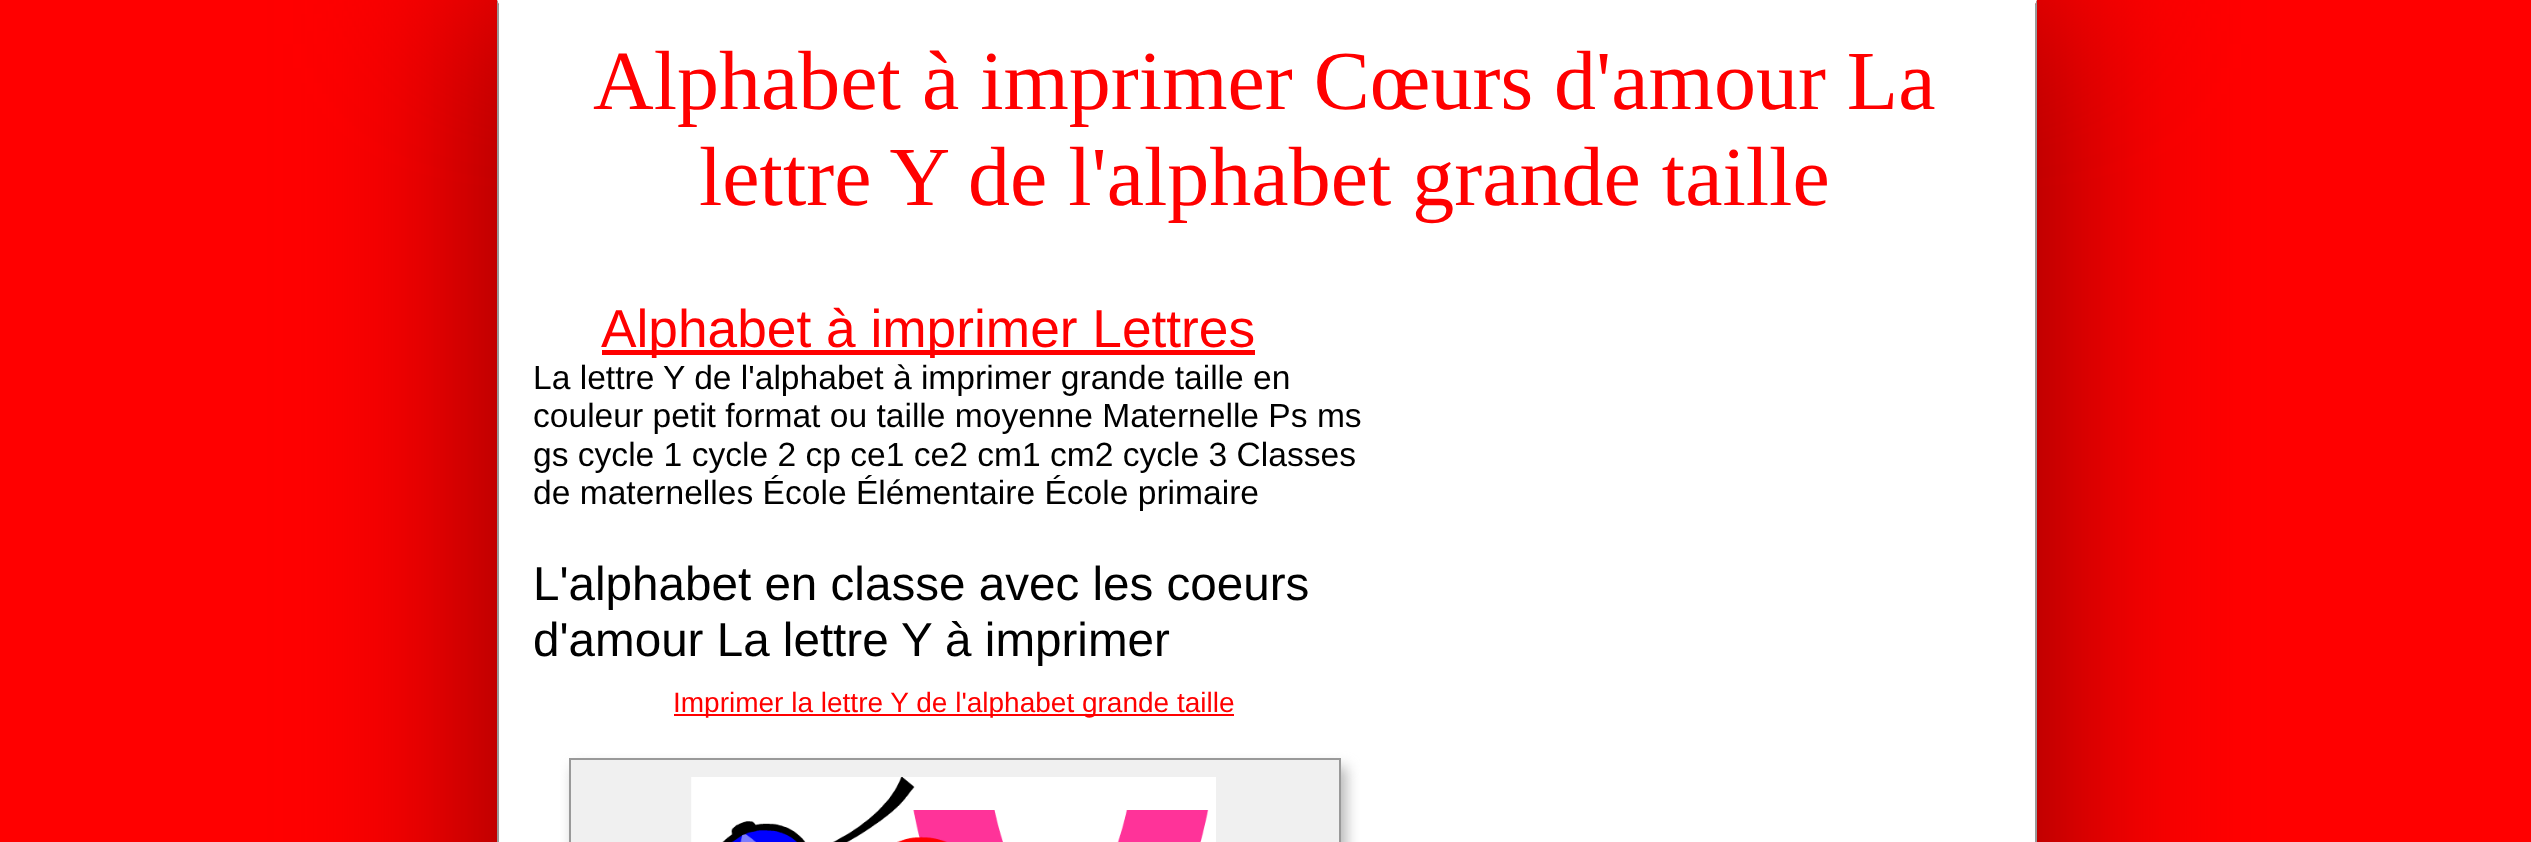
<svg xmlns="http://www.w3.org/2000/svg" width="2531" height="842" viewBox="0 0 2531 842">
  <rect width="100%" height="100%" fill="rgb(255,0,0)"/>
  <rect x="476" y="-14" width="1582" height="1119" fill="rgb(153,0,0)" filter="blur(87.5px)"/>
  <rect x="499" y="5" width="1536" height="837" fill="rgb(255,255,255)"/>
  <path d="M497 0H2037L2035 5H499Z" fill="rgb(255,255,255)"/>
  <path d="M2037 0V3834L2035 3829V5Z" fill="rgb(153,153,153)"/>
  <path d="M497 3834V0L499 5V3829Z" fill="rgb(153,153,153)"/>
  <g font-family="Liberation Serif" font-size="84" fill="rgb(255,0,0)">
    <text x="593" y="109">Alphabet à imprimer Cœurs d'amour La</text>
    <text x="699" y="205">lettre Y de l'alphabet grande taille</text>
  </g>
  <rect x="602" y="350" width="653" height="5" fill="rgb(255,0,0)"/>
  <text x="601" y="347" font-family="Liberation Sans" font-size="53.25" fill="rgb(255,0,0)">Alphabet à imprimer Lettres</text>
  <g font-family="Liberation Sans" font-size="33.6" fill="rgb(0,0,0)">
    <text>
      <tspan x="533" y="389">La lettre Y de l'alphabet à imprimer grande taille en</tspan>
      <tspan x="533" y="427">couleur petit format ou taille moyenne Maternelle Ps ms</tspan>
      <tspan x="533" y="466">gs cycle 1 cycle 2 cp ce1 ce2 cm1 cm2 cycle 3 Classes</tspan>
      <tspan x="533" y="504">de maternelles École Élémentaire École primaire</tspan>
    </text>
  </g>
  <g font-family="Liberation Sans" font-size="47.6" fill="rgb(0,0,0)">
    <text>
      <tspan x="533" y="600">L'alphabet en classe avec les coeurs</tspan>
      <tspan x="533" y="656">d'amour La lettre Y à imprimer</tspan>
    </text>
  </g>
  <rect x="674" y="714" width="560" height="2" fill="rgb(255,0,0)"/>
  <text x="673" y="712" font-family="Liberation Sans" font-size="28" fill="rgb(255,0,0)">Imprimer la lettre Y de l'alphabet grande taille</text>
  <rect x="574" y="767" width="772" height="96" fill="rgb(179,179,179)" filter="blur(7px)"/>
  <rect x="570" y="759" width="770" height="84" fill="rgb(240,240,240)" stroke="rgb(153,153,153)" stroke-width="2"/>
  <image x="691" y="777" width="525" height="65" href="pic1.png"/>
</svg>
